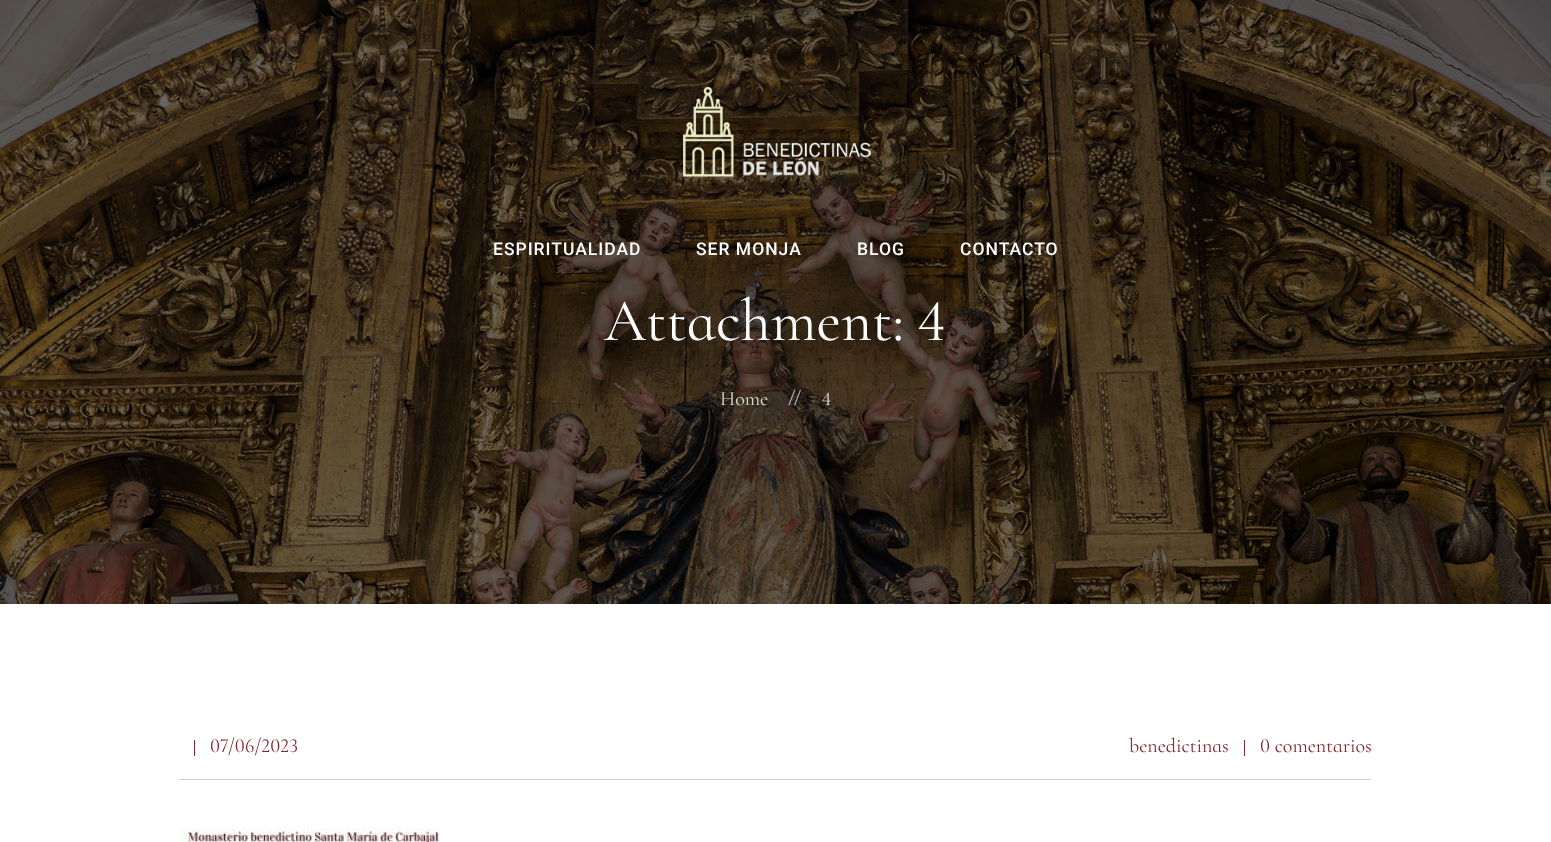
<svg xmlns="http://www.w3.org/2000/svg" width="1551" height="842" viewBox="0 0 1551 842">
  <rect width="100%" height="100%" fill="rgb(255,255,255)"/>
  <image x="0" y="0" width="1551" height="604" href="pic2.png"/>
  <image x="683" y="87" width="188" height="90" href="pic1.png"/>
  <g font-family="Roboto" font-size="17.5" font-weight="500" letter-spacing="1" fill="rgb(255,255,255)">
    <text x="493" y="255">ESPIRITUALIDAD</text>
    <text x="696" y="255">SER MONJA</text>
    <text x="857" y="255">BLOG</text>
    <text x="960" y="255">CONTACTO</text>
  </g>
  <text x="604" y="340" font-family="Cormorant Infant" font-size="60" font-weight="300" fill="rgb(255,255,255)">Attachment: 4</text>
  <text x="720" y="405" font-family="Cormorant Infant" font-size="20" font-weight="300" fill="rgb(225,219,203)">Home</text>
  <text x="788" y="404" font-family="Roboto" font-size="20" font-weight="300" fill="rgb(191,188,186)">//</text>
  <text x="822" y="405" font-family="Cormorant Infant" font-size="20" font-weight="300" fill="rgb(225,219,203)">4</text>
  <rect x="180" y="779" width="1191" height="1" fill="rgb(204,204,204)"/>
  <rect x="194" y="740" width="1" height="16" fill="rgb(131,39,50)"/>
  <g font-family="Cormorant Infant" font-size="20" font-weight="300" fill="rgb(131,39,50)">
    <text x="210" y="752">07/06/2023</text>
    <text x="1129" y="752">benedictinas</text>
  </g>
  <rect x="1244" y="740" width="1" height="16" fill="rgb(131,39,50)"/>
  <text x="1260" y="752" font-family="Cormorant Infant" font-size="20" font-weight="300" fill="rgb(131,39,50)">0 comentarios</text>
  <image x="180" y="827" width="260" height="15" href="pic3.png"/>
</svg>
